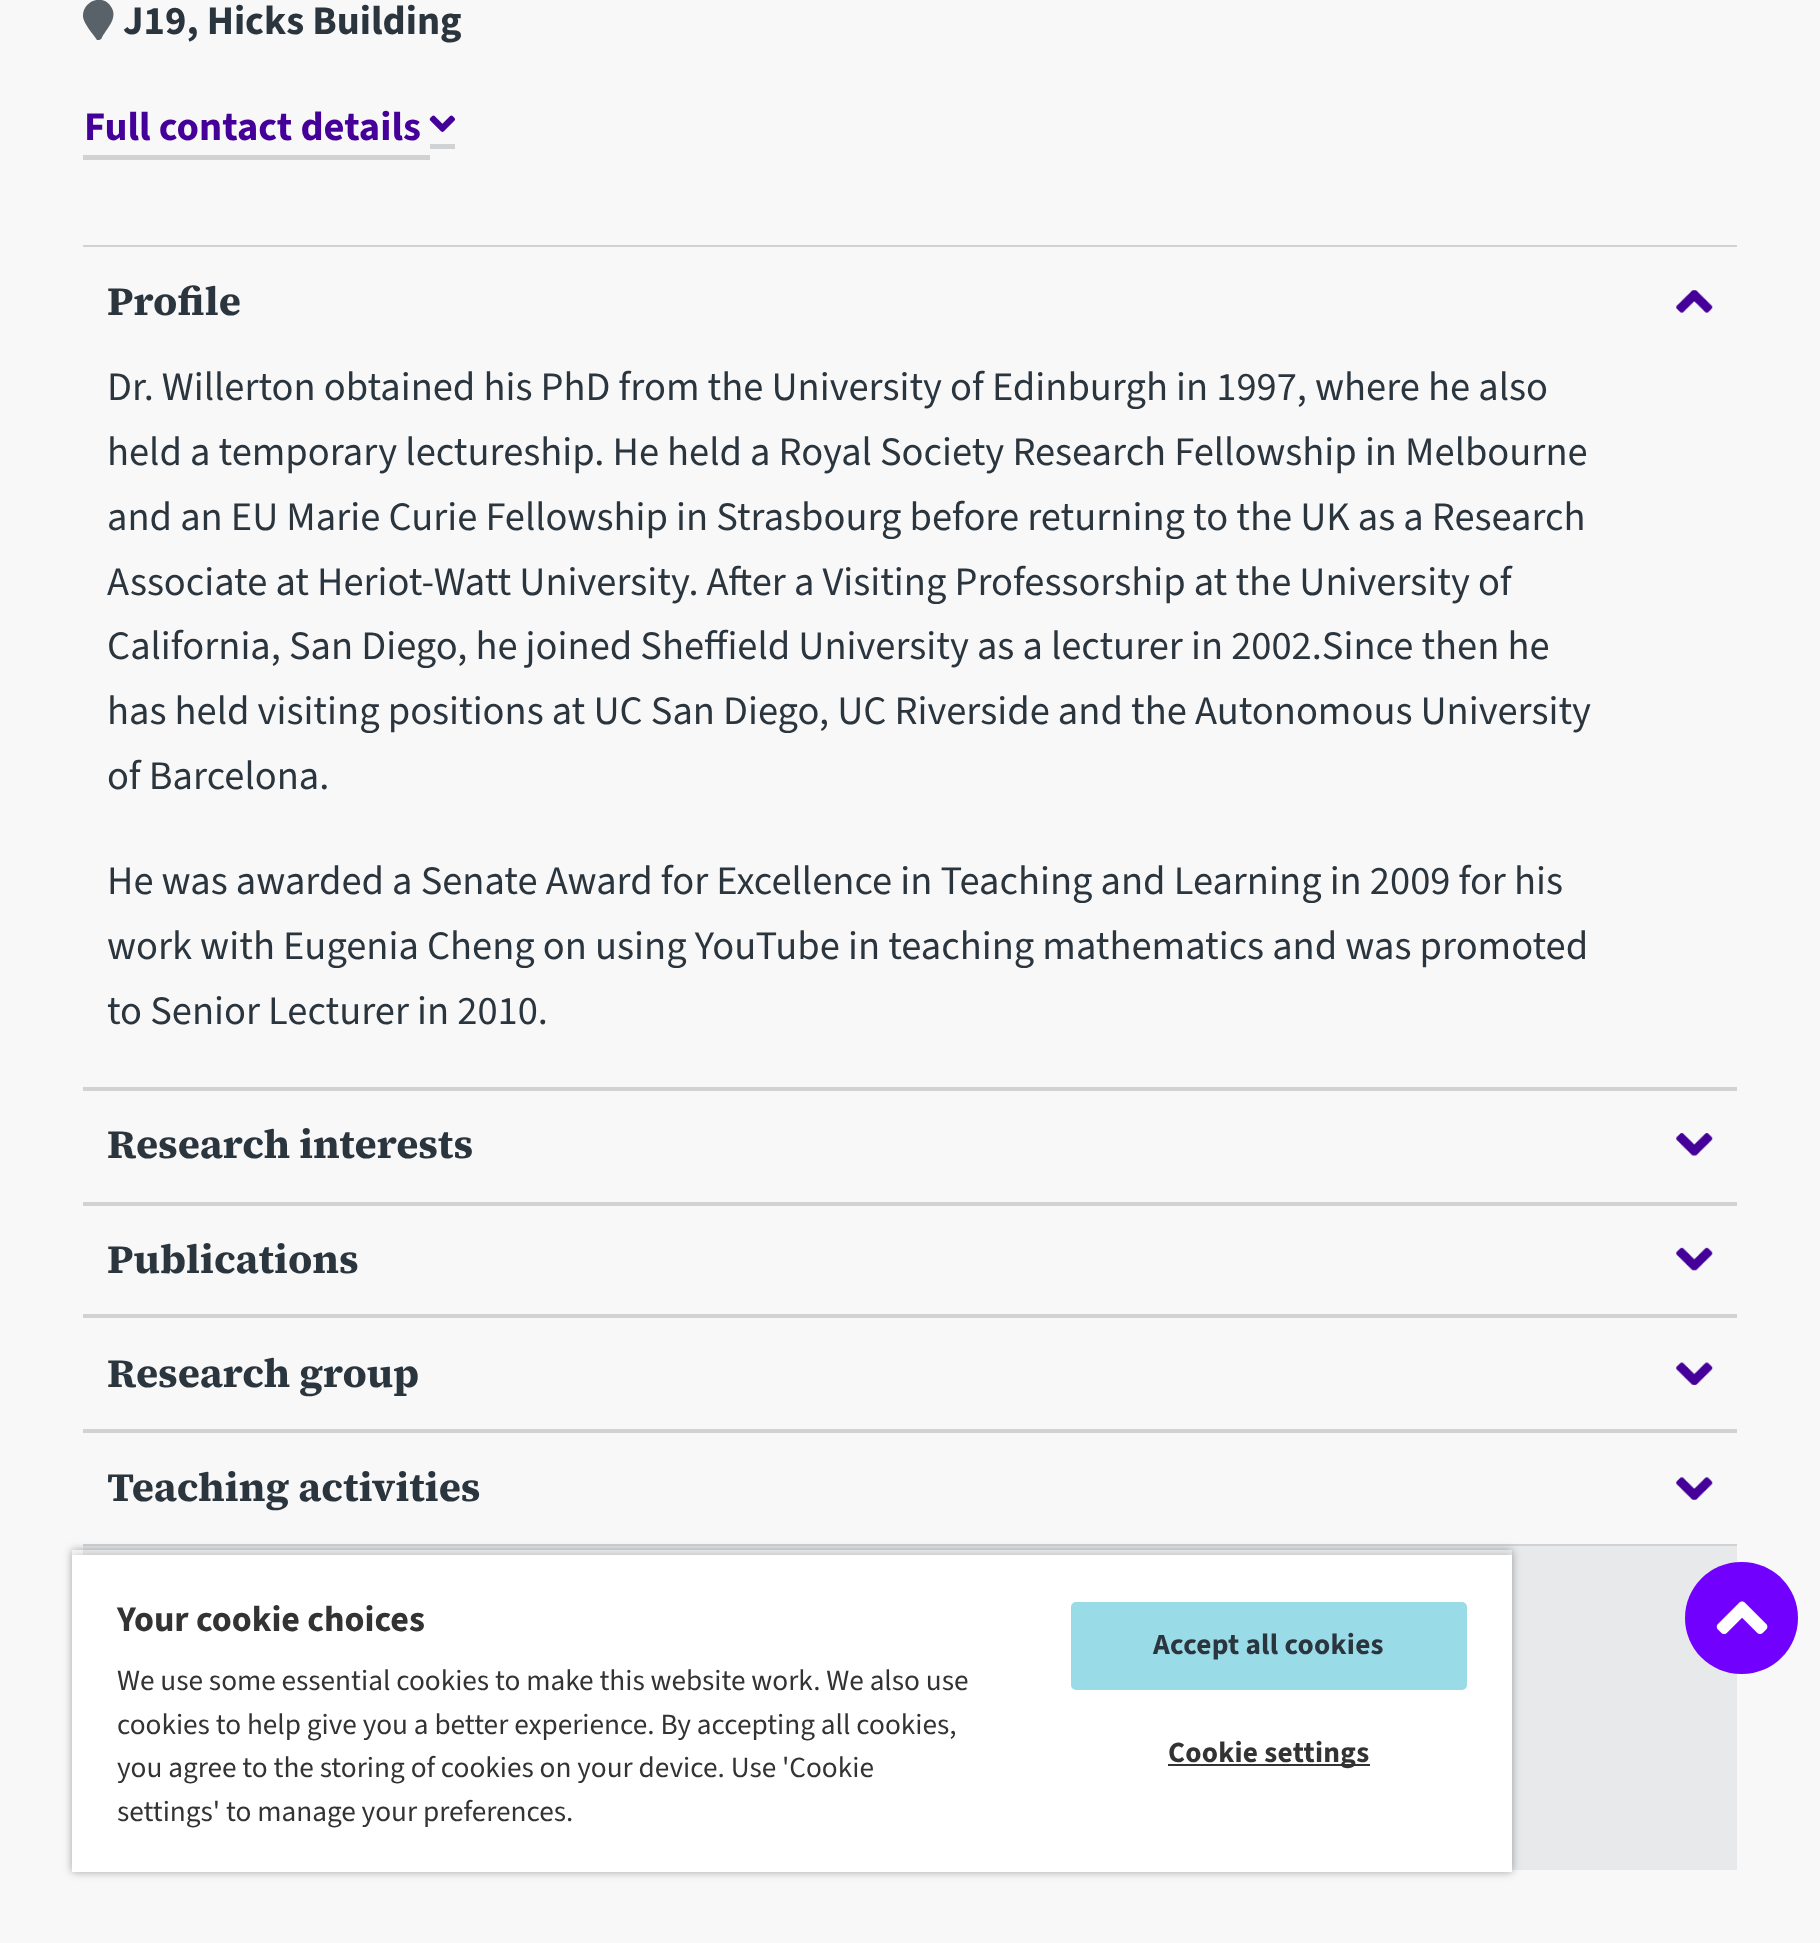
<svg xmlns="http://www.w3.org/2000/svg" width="1820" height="1943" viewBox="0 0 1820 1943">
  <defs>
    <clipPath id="clip1"><path d="M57 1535H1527V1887H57ZM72 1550H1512V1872H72Z" clip-rule="evenodd"/></clipPath>
    <clipPath id="clip2"><rect x="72" y="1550" width="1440" height="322"/></clipPath>
  </defs>
  <rect width="100%" height="100%" fill="rgb(248,248,249)"/>
  <path d="M97 40C93 34 84 24 83 17C82 3 99-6 109 4C119 15 110 25 104 34C102 36 102 40 99 40Z" fill="rgb(90,98,105)"/>
  <text x="123" y="34" font-family="'Source Sans 3'" font-size="40.5" font-weight="200" fill="rgb(43,53,62)">J19, Hicks Building</text>
  <rect x="83" y="155" width="347" height="5" fill="rgb(208,210,212)"/>
  <rect x="430" y="144" width="25" height="5" fill="rgb(208,210,212)"/>
  <text x="84" y="140" font-family="'Source Sans 3'" font-size="40.5" font-weight="200" fill="rgb(68,0,153)">Full contact details</text>
  <image x="429" y="115" width="26" height="17" href="pic1.png"/>
  <rect x="83" y="1087" width="1654" height="4" fill="rgb(208,210,212)"/>
  <rect x="83" y="245" width="1654" height="2" fill="rgb(208,210,212)"/>
  <text x="107" y="315" font-family="'Source Serif 4'" font-size="40.5" font-weight="bold" fill="rgb(43,53,62)">Profile</text>
  <image x="1676" y="290" width="37" height="23" href="pic2.png"/>
  <g font-family="'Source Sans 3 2'" font-size="40.5" font-weight="200" fill="rgb(43,53,62)">
    <text>
      <tspan x="107" y="400">Dr. Willerton obtained his PhD from the University of Edinburgh in 1997, where he also</tspan>
      <tspan x="107" y="465">held a temporary lectureship. He held a Royal Society Research Fellowship in Melbourne</tspan>
      <tspan x="107" y="530">and an EU Marie Curie Fellowship in Strasbourg before returning to the UK as a Research</tspan>
      <tspan x="107" y="595">Associate at Heriot-Watt University. After a Visiting Professorship at the University of</tspan>
      <tspan x="107" y="659">California, San Diego, he joined Sheffield University as a lecturer in 2002.Since then he</tspan>
      <tspan x="107" y="724">has held visiting positions at UC San Diego, UC Riverside and the Autonomous University</tspan>
      <tspan x="107" y="789">of Barcelona.</tspan>
    </text>
    <text>
      <tspan x="107" y="894">He was awarded a Senate Award for Excellence in Teaching and Learning in 2009 for his</tspan>
      <tspan x="107" y="959">work with Eugenia Cheng on using YouTube in teaching mathematics and was promoted</tspan>
      <tspan x="107" y="1024">to Senior Lecturer in 2010.</tspan>
    </text>
  </g>
  <rect x="83" y="1202" width="1654" height="4" fill="rgb(208,210,212)"/>
  <text x="107" y="1158" font-family="'Source Serif 4'" font-size="40.5" font-weight="bold" fill="rgb(43,53,62)">Research interests</text>
  <image x="1676" y="1133" width="37" height="23" href="pic3.png"/>
  <rect x="83" y="1314" width="1654" height="4" fill="rgb(208,210,212)"/>
  <text x="107" y="1273" font-family="'Source Serif 4'" font-size="40.5" font-weight="bold" fill="rgb(43,53,62)">Publications</text>
  <image x="1676" y="1247" width="37" height="24" href="pic4.png"/>
  <rect x="83" y="1429" width="1654" height="4" fill="rgb(208,210,212)"/>
  <text x="107" y="1387" font-family="'Source Serif 4'" font-size="40.5" font-weight="bold" fill="rgb(43,53,62)">Research group</text>
  <image x="1676" y="1362" width="37" height="23" href="pic5.png"/>
  <rect x="83" y="1544" width="1654" height="2" fill="rgb(208,210,212)"/>
  <text x="107" y="1501" font-family="'Source Serif 4'" font-size="40.5" font-weight="bold" fill="rgb(43,53,62)">Teaching activities</text>
  <image x="1676" y="1477" width="37" height="23" href="pic6.png"/>
  <rect x="83" y="1546" width="1654" height="324" fill="rgb(231,233,234)"/>
  <g clip-path="url(#clip1)">
    <rect x="72" y="1550" width="1440" height="322" fill="rgba(0,0,0,0.35)" filter="blur(4.5px)"/>
  </g>
  <g clip-path="url(#clip2)">
    <rect x="72" y="1555" width="1440" height="317" fill="rgba(0,0,0,0.2)" filter="blur(4.5px)"/>
  </g>
  <rect x="72" y="1555" width="1440" height="317" fill="rgb(255,255,255)"/>
  <text x="117" y="1631" font-family="'Source Sans 3'" font-size="36" font-weight="200" fill="rgb(51,51,51)">Your cookie choices</text>
  <g font-family="'Source Sans 3 2'" font-size="29.25" font-weight="200" fill="rgb(51,51,51)">
    <text>
      <tspan x="117" y="1690">We use some essential cookies to make this website work. We also use</tspan>
      <tspan x="117" y="1734">cookies to help give you a better experience. By accepting all cookies,</tspan>
      <tspan x="117" y="1777">you agree to the storing of cookies on your device. Use 'Cookie</tspan>
      <tspan x="117" y="1821">settings' to manage your preferences.</tspan>
    </text>
  </g>
  <rect x="1072" y="1603" width="394" height="86" rx="4" fill="rgb(154,219,232)" stroke="rgb(154,219,232)" stroke-width="2"/>
  <text x="1153" y="1654" font-family="'Source Sans 3'" font-size="29.25" font-weight="200" letter-spacing="0.25" fill="rgb(43,53,62)">Accept all cookies</text>
  <rect x="1168" y="1764" width="202" height="2" fill="rgb(51,51,51)"/>
  <text x="1168" y="1762" font-family="'Source Sans 3'" font-size="29.25" font-weight="200" letter-spacing="0.25" fill="rgb(51,51,51)">Cookie settings</text>
  <rect x="1685" y="1562" width="113" height="112" rx="56" fill="rgb(113,0,255)"/>
  <image x="1716" y="1601" width="52" height="34" href="pic7.png"/>
</svg>
